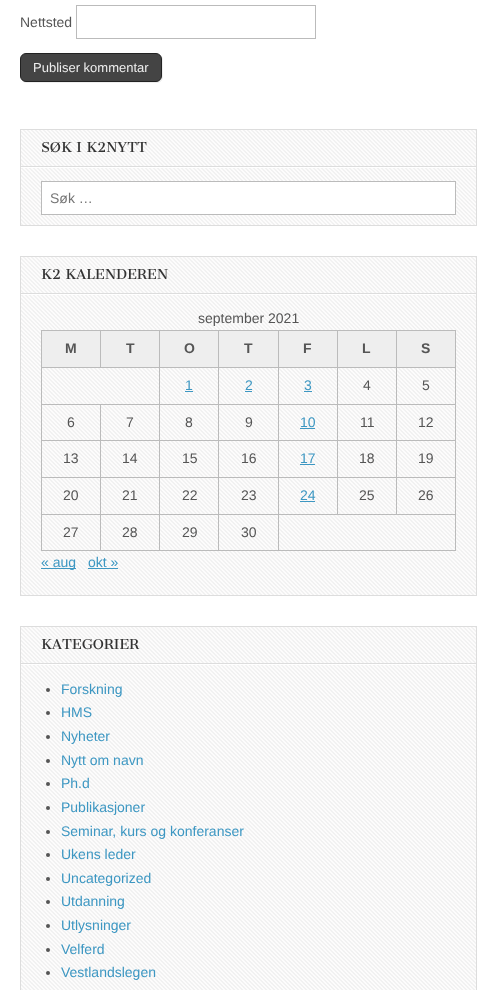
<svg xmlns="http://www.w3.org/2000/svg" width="497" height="990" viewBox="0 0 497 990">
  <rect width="100%" height="100%" fill="rgb(255,255,255)"/>
  <text x="20" y="27" font-family="Liberation Sans" font-size="14" fill="rgb(85,85,85)">Nettsted</text>
  <rect x="76.5" y="5.5" width="239" height="33" fill="none" stroke="rgb(187,187,187)"/>
  <path d="M22 81C23 82 25 83 27 83H157C160 83 163 80 163 77V60C163 58 162 56 161 55C162 56 162 58 162 59V76C162 79 159 82 156 82H26C25 82 23 82 22 81Z" fill="rgb(238,238,238)"/>
  <rect x="20.5" y="53.5" width="141" height="28" rx="5.5" fill="rgb(68,68,68)" stroke="rgb(34,34,34)"/>
  <text x="33" y="72" font-family="Liberation Sans" font-size="13" fill="rgb(238,238,238)">Publiser kommentar</text>
  <image x="21" y="130" width="455" height="95" href="pic1.png"/>
  <rect x="20.5" y="129.5" width="456" height="96" fill="none" stroke="rgb(221,221,221)"/>
  <rect x="21" y="167" width="455" height="1" fill="rgb(255,255,255)"/>
  <rect x="21" y="166" width="455" height="1" fill="rgb(221,221,221)"/>
  <text x="41" y="152" font-family="Cantata One" font-size="13.25" fill="rgb(51,51,51)">SØK I K2NYTT</text>
  <rect x="41.5" y="181.5" width="414" height="33" fill="rgb(255,255,255)" stroke="rgb(187,187,187)"/>
  <text x="50" y="203" font-family="Liberation Sans" font-size="14" fill="rgb(117,117,117)">Søk …</text>
  <image x="21" y="257" width="455" height="338" href="pic2.png"/>
  <rect x="20.5" y="256.5" width="456" height="339" fill="none" stroke="rgb(221,221,221)"/>
  <rect x="21" y="294" width="455" height="1" fill="rgb(255,255,255)"/>
  <rect x="21" y="293" width="455" height="1" fill="rgb(221,221,221)"/>
  <text x="41" y="279" font-family="Cantata One" font-size="13.25" fill="rgb(51,51,51)">K2 KALENDEREN</text>
  <text x="198" y="323" font-family="Liberation Sans" font-size="14" fill="rgb(85,85,85)">september 2021</text>
  <rect x="42" y="331" width="58" height="36" fill="rgb(238,238,238)"/>
  <rect x="396" y="330" width="60" height="1" fill="rgb(187,187,187)"/>
  <rect x="396" y="367" width="60" height="1" fill="rgb(187,187,187)"/>
  <rect x="396" y="404" width="60" height="1" fill="rgb(187,187,187)"/>
  <rect x="396" y="440" width="60" height="1" fill="rgb(187,187,187)"/>
  <rect x="396" y="477" width="60" height="1" fill="rgb(187,187,187)"/>
  <rect x="278" y="514" width="178" height="1" fill="rgb(187,187,187)"/>
  <rect x="396" y="477" width="1" height="38" fill="rgb(187,187,187)"/>
  <rect x="337" y="477" width="60" height="1" fill="rgb(187,187,187)"/>
  <rect x="396" y="440" width="1" height="38" fill="rgb(187,187,187)"/>
  <rect x="337" y="440" width="60" height="1" fill="rgb(187,187,187)"/>
  <rect x="396" y="404" width="1" height="37" fill="rgb(187,187,187)"/>
  <rect x="337" y="404" width="60" height="1" fill="rgb(187,187,187)"/>
  <rect x="396" y="367" width="1" height="38" fill="rgb(187,187,187)"/>
  <rect x="337" y="367" width="60" height="1" fill="rgb(187,187,187)"/>
  <rect x="396" y="330" width="1" height="38" fill="rgb(187,187,187)"/>
  <rect x="337" y="330" width="60" height="1" fill="rgb(187,187,187)"/>
  <rect x="337" y="477" width="1" height="38" fill="rgb(187,187,187)"/>
  <rect x="278" y="477" width="60" height="1" fill="rgb(187,187,187)"/>
  <rect x="337" y="440" width="1" height="38" fill="rgb(187,187,187)"/>
  <rect x="278" y="440" width="60" height="1" fill="rgb(187,187,187)"/>
  <rect x="337" y="404" width="1" height="37" fill="rgb(187,187,187)"/>
  <rect x="278" y="404" width="60" height="1" fill="rgb(187,187,187)"/>
  <rect x="337" y="367" width="1" height="38" fill="rgb(187,187,187)"/>
  <rect x="278" y="367" width="60" height="1" fill="rgb(187,187,187)"/>
  <rect x="337" y="330" width="1" height="38" fill="rgb(187,187,187)"/>
  <rect x="278" y="330" width="60" height="1" fill="rgb(187,187,187)"/>
  <rect x="455" y="514" width="1" height="37" fill="rgb(187,187,187)"/>
  <rect x="278" y="550" width="178" height="1" fill="rgb(187,187,187)"/>
  <rect x="278" y="514" width="1" height="37" fill="rgb(187,187,187)"/>
  <rect x="218" y="514" width="61" height="1" fill="rgb(187,187,187)"/>
  <rect x="278" y="477" width="1" height="38" fill="rgb(187,187,187)"/>
  <rect x="218" y="477" width="61" height="1" fill="rgb(187,187,187)"/>
  <rect x="278" y="440" width="1" height="38" fill="rgb(187,187,187)"/>
  <rect x="218" y="440" width="61" height="1" fill="rgb(187,187,187)"/>
  <rect x="278" y="404" width="1" height="37" fill="rgb(187,187,187)"/>
  <rect x="218" y="404" width="61" height="1" fill="rgb(187,187,187)"/>
  <rect x="278" y="367" width="1" height="38" fill="rgb(187,187,187)"/>
  <rect x="218" y="367" width="61" height="1" fill="rgb(187,187,187)"/>
  <rect x="278" y="330" width="1" height="38" fill="rgb(187,187,187)"/>
  <rect x="218" y="330" width="61" height="1" fill="rgb(187,187,187)"/>
  <rect x="218" y="550" width="61" height="1" fill="rgb(187,187,187)"/>
  <rect x="218" y="514" width="1" height="37" fill="rgb(187,187,187)"/>
  <rect x="159" y="514" width="60" height="1" fill="rgb(187,187,187)"/>
  <rect x="218" y="477" width="1" height="38" fill="rgb(187,187,187)"/>
  <rect x="159" y="477" width="60" height="1" fill="rgb(187,187,187)"/>
  <rect x="218" y="440" width="1" height="38" fill="rgb(187,187,187)"/>
  <rect x="159" y="440" width="60" height="1" fill="rgb(187,187,187)"/>
  <rect x="218" y="404" width="1" height="37" fill="rgb(187,187,187)"/>
  <rect x="159" y="404" width="60" height="1" fill="rgb(187,187,187)"/>
  <rect x="218" y="367" width="1" height="38" fill="rgb(187,187,187)"/>
  <rect x="159" y="367" width="60" height="1" fill="rgb(187,187,187)"/>
  <rect x="218" y="330" width="1" height="38" fill="rgb(187,187,187)"/>
  <rect x="159" y="330" width="60" height="1" fill="rgb(187,187,187)"/>
  <rect x="159" y="550" width="60" height="1" fill="rgb(187,187,187)"/>
  <rect x="159" y="514" width="1" height="37" fill="rgb(187,187,187)"/>
  <rect x="100" y="514" width="60" height="1" fill="rgb(187,187,187)"/>
  <rect x="159" y="477" width="1" height="38" fill="rgb(187,187,187)"/>
  <rect x="100" y="477" width="60" height="1" fill="rgb(187,187,187)"/>
  <rect x="159" y="440" width="1" height="38" fill="rgb(187,187,187)"/>
  <rect x="100" y="440" width="60" height="1" fill="rgb(187,187,187)"/>
  <rect x="159" y="404" width="1" height="37" fill="rgb(187,187,187)"/>
  <rect x="100" y="404" width="60" height="1" fill="rgb(187,187,187)"/>
  <rect x="159" y="367" width="1" height="38" fill="rgb(187,187,187)"/>
  <rect x="41" y="367" width="119" height="1" fill="rgb(187,187,187)"/>
  <rect x="159" y="330" width="1" height="38" fill="rgb(187,187,187)"/>
  <rect x="100" y="330" width="60" height="1" fill="rgb(187,187,187)"/>
  <rect x="100" y="330" width="1" height="38" fill="rgb(187,187,187)"/>
  <rect x="41" y="330" width="60" height="1" fill="rgb(187,187,187)"/>
  <rect x="100" y="550" width="60" height="1" fill="rgb(187,187,187)"/>
  <rect x="100" y="514" width="1" height="37" fill="rgb(187,187,187)"/>
  <rect x="41" y="514" width="60" height="1" fill="rgb(187,187,187)"/>
  <rect x="100" y="477" width="1" height="38" fill="rgb(187,187,187)"/>
  <rect x="41" y="477" width="60" height="1" fill="rgb(187,187,187)"/>
  <rect x="100" y="440" width="1" height="38" fill="rgb(187,187,187)"/>
  <rect x="41" y="440" width="60" height="1" fill="rgb(187,187,187)"/>
  <rect x="100" y="404" width="1" height="37" fill="rgb(187,187,187)"/>
  <rect x="41" y="404" width="60" height="1" fill="rgb(187,187,187)"/>
  <rect x="41" y="550" width="60" height="1" fill="rgb(187,187,187)"/>
  <rect x="41" y="514" width="1" height="37" fill="rgb(187,187,187)"/>
  <rect x="41" y="477" width="1" height="38" fill="rgb(187,187,187)"/>
  <rect x="41" y="440" width="1" height="38" fill="rgb(187,187,187)"/>
  <rect x="41" y="404" width="1" height="37" fill="rgb(187,187,187)"/>
  <rect x="41" y="367" width="1" height="38" fill="rgb(187,187,187)"/>
  <rect x="41" y="330" width="1" height="38" fill="rgb(187,187,187)"/>
  <text x="65" y="353" font-family="Liberation Sans" font-size="14" font-weight="bold" fill="rgb(85,85,85)">M</text>
  <rect x="101" y="331" width="58" height="36" fill="rgb(238,238,238)"/>
  <text x="126" y="353" font-family="Liberation Sans" font-size="14" font-weight="bold" fill="rgb(85,85,85)">T</text>
  <rect x="160" y="331" width="58" height="36" fill="rgb(238,238,238)"/>
  <text x="184" y="353" font-family="Liberation Sans" font-size="14" font-weight="bold" fill="rgb(85,85,85)">O</text>
  <rect x="219" y="331" width="59" height="36" fill="rgb(238,238,238)"/>
  <text x="244" y="353" font-family="Liberation Sans" font-size="14" font-weight="bold" fill="rgb(85,85,85)">T</text>
  <rect x="279" y="331" width="58" height="36" fill="rgb(238,238,238)"/>
  <text x="303" y="353" font-family="Liberation Sans" font-size="14" font-weight="bold" fill="rgb(85,85,85)">F</text>
  <rect x="338" y="331" width="58" height="36" fill="rgb(238,238,238)"/>
  <text x="362" y="353" font-family="Liberation Sans" font-size="14" font-weight="bold" fill="rgb(85,85,85)">L</text>
  <rect x="397" y="331" width="58" height="36" fill="rgb(238,238,238)"/>
  <rect x="455" y="477" width="1" height="38" fill="rgb(187,187,187)"/>
  <rect x="455" y="440" width="1" height="38" fill="rgb(187,187,187)"/>
  <rect x="455" y="404" width="1" height="37" fill="rgb(187,187,187)"/>
  <rect x="455" y="367" width="1" height="38" fill="rgb(187,187,187)"/>
  <rect x="455" y="330" width="1" height="38" fill="rgb(187,187,187)"/>
  <text x="421" y="353" font-family="Liberation Sans" font-size="14" font-weight="bold" fill="rgb(85,85,85)">S</text>
  <text x="185" y="390" font-family="Liberation Sans" font-size="14" fill="rgb(61,151,194)">1</text>
  <rect x="185" y="391" width="8" height="1" fill="rgb(61,151,194)"/>
  <text x="245" y="390" font-family="Liberation Sans" font-size="14" fill="rgb(61,151,194)">2</text>
  <rect x="245" y="391" width="7" height="1" fill="rgb(61,151,194)"/>
  <text x="304" y="390" font-family="Liberation Sans" font-size="14" fill="rgb(61,151,194)">3</text>
  <rect x="304" y="391" width="8" height="1" fill="rgb(61,151,194)"/>
  <g font-family="Liberation Sans" font-size="14" fill="rgb(85,85,85)">
    <text x="363" y="390">4</text>
    <text x="422" y="390">5</text>
    <text x="67" y="427">6</text>
    <text x="126" y="427">7</text>
    <text x="185" y="427">8</text>
    <text x="245" y="427">9</text>
  </g>
  <text x="300" y="427" font-family="Liberation Sans" font-size="14" fill="rgb(61,151,194)">10</text>
  <rect x="300" y="428" width="15" height="1" fill="rgb(61,151,194)"/>
  <g font-family="Liberation Sans" font-size="14" fill="rgb(85,85,85)">
    <text x="360" y="427">11</text>
    <text x="418" y="427">12</text>
    <text x="63" y="463">13</text>
    <text x="122" y="463">14</text>
    <text x="182" y="463">15</text>
    <text x="241" y="463">16</text>
  </g>
  <text x="300" y="463" font-family="Liberation Sans" font-size="14" fill="rgb(61,151,194)">17</text>
  <rect x="300" y="464" width="15" height="1" fill="rgb(61,151,194)"/>
  <g font-family="Liberation Sans" font-size="14" fill="rgb(85,85,85)">
    <text x="359" y="463">18</text>
    <text x="418" y="463">19</text>
    <text x="63" y="500">20</text>
    <text x="122" y="500">21</text>
    <text x="182" y="500">22</text>
    <text x="241" y="500">23</text>
  </g>
  <text x="300" y="500" font-family="Liberation Sans" font-size="14" fill="rgb(61,151,194)">24</text>
  <rect x="300" y="501" width="15" height="1" fill="rgb(61,151,194)"/>
  <g font-family="Liberation Sans" font-size="14" fill="rgb(85,85,85)">
    <text x="359" y="500">25</text>
    <text x="418" y="500">26</text>
    <text x="63" y="537">27</text>
    <text x="122" y="537">28</text>
    <text x="182" y="537">29</text>
    <text x="241" y="537">30</text>
  </g>
  <rect x="41" y="568" width="35" height="1" fill="rgb(61,151,194)"/>
  <g font-family="Liberation Sans" font-size="14" fill="rgb(61,151,194)">
    <text x="41" y="567">« aug</text>
    <text x="88" y="567">okt »</text>
  </g>
  <rect x="88" y="568" width="30" height="1" fill="rgb(61,151,194)"/>
  <image x="21" y="627" width="455" height="363" href="pic3.png"/>
  <rect x="20.5" y="626.5" width="456" height="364" fill="none" stroke="rgb(221,221,221)"/>
  <rect x="21" y="664" width="455" height="1" fill="rgb(255,255,255)"/>
  <rect x="21" y="663" width="455" height="1" fill="rgb(221,221,221)"/>
  <text x="41" y="649" font-family="Cantata One" font-size="13.25" fill="rgb(51,51,51)">KATEGORIER</text>
  <circle cx="48" cy="690" r="2" fill="rgb(85,85,85)"/>
  <text x="61" y="694" font-family="Liberation Sans" font-size="14" fill="rgb(61,151,194)">Forskning</text>
  <circle cx="48" cy="713" r="2" fill="rgb(85,85,85)"/>
  <text x="61" y="717" font-family="Liberation Sans" font-size="14" fill="rgb(61,151,194)">HMS</text>
  <circle cx="48" cy="737" r="2" fill="rgb(85,85,85)"/>
  <text x="61" y="741" font-family="Liberation Sans" font-size="14" fill="rgb(61,151,194)">Nyheter</text>
  <circle cx="48" cy="761" r="2" fill="rgb(85,85,85)"/>
  <text x="61" y="765" font-family="Liberation Sans" font-size="14" fill="rgb(61,151,194)">Nytt om navn</text>
  <circle cx="48" cy="784" r="2" fill="rgb(85,85,85)"/>
  <text x="61" y="788" font-family="Liberation Sans" font-size="14" fill="rgb(61,151,194)">Ph.d</text>
  <circle cx="48" cy="808" r="2" fill="rgb(85,85,85)"/>
  <text x="61" y="812" font-family="Liberation Sans" font-size="14" fill="rgb(61,151,194)">Publikasjoner</text>
  <circle cx="48" cy="832" r="2" fill="rgb(85,85,85)"/>
  <text x="61" y="836" font-family="Liberation Sans" font-size="14" fill="rgb(61,151,194)">Seminar, kurs og konferanser</text>
  <circle cx="48" cy="855" r="2" fill="rgb(85,85,85)"/>
  <text x="61" y="859" font-family="Liberation Sans" font-size="14" fill="rgb(61,151,194)">Ukens leder</text>
  <circle cx="48" cy="879" r="2" fill="rgb(85,85,85)"/>
  <text x="61" y="883" font-family="Liberation Sans" font-size="14" fill="rgb(61,151,194)">Uncategorized</text>
  <circle cx="48" cy="902" r="2" fill="rgb(85,85,85)"/>
  <text x="61" y="906" font-family="Liberation Sans" font-size="14" fill="rgb(61,151,194)">Utdanning</text>
  <circle cx="48" cy="926" r="2" fill="rgb(85,85,85)"/>
  <text x="61" y="930" font-family="Liberation Sans" font-size="14" fill="rgb(61,151,194)">Utlysninger</text>
  <circle cx="48" cy="950" r="2" fill="rgb(85,85,85)"/>
  <text x="61" y="954" font-family="Liberation Sans" font-size="14" fill="rgb(61,151,194)">Velferd</text>
  <circle cx="48" cy="973" r="2" fill="rgb(85,85,85)"/>
  <text x="61" y="977" font-family="Liberation Sans" font-size="14" fill="rgb(61,151,194)">Vestlandslegen</text>
</svg>
